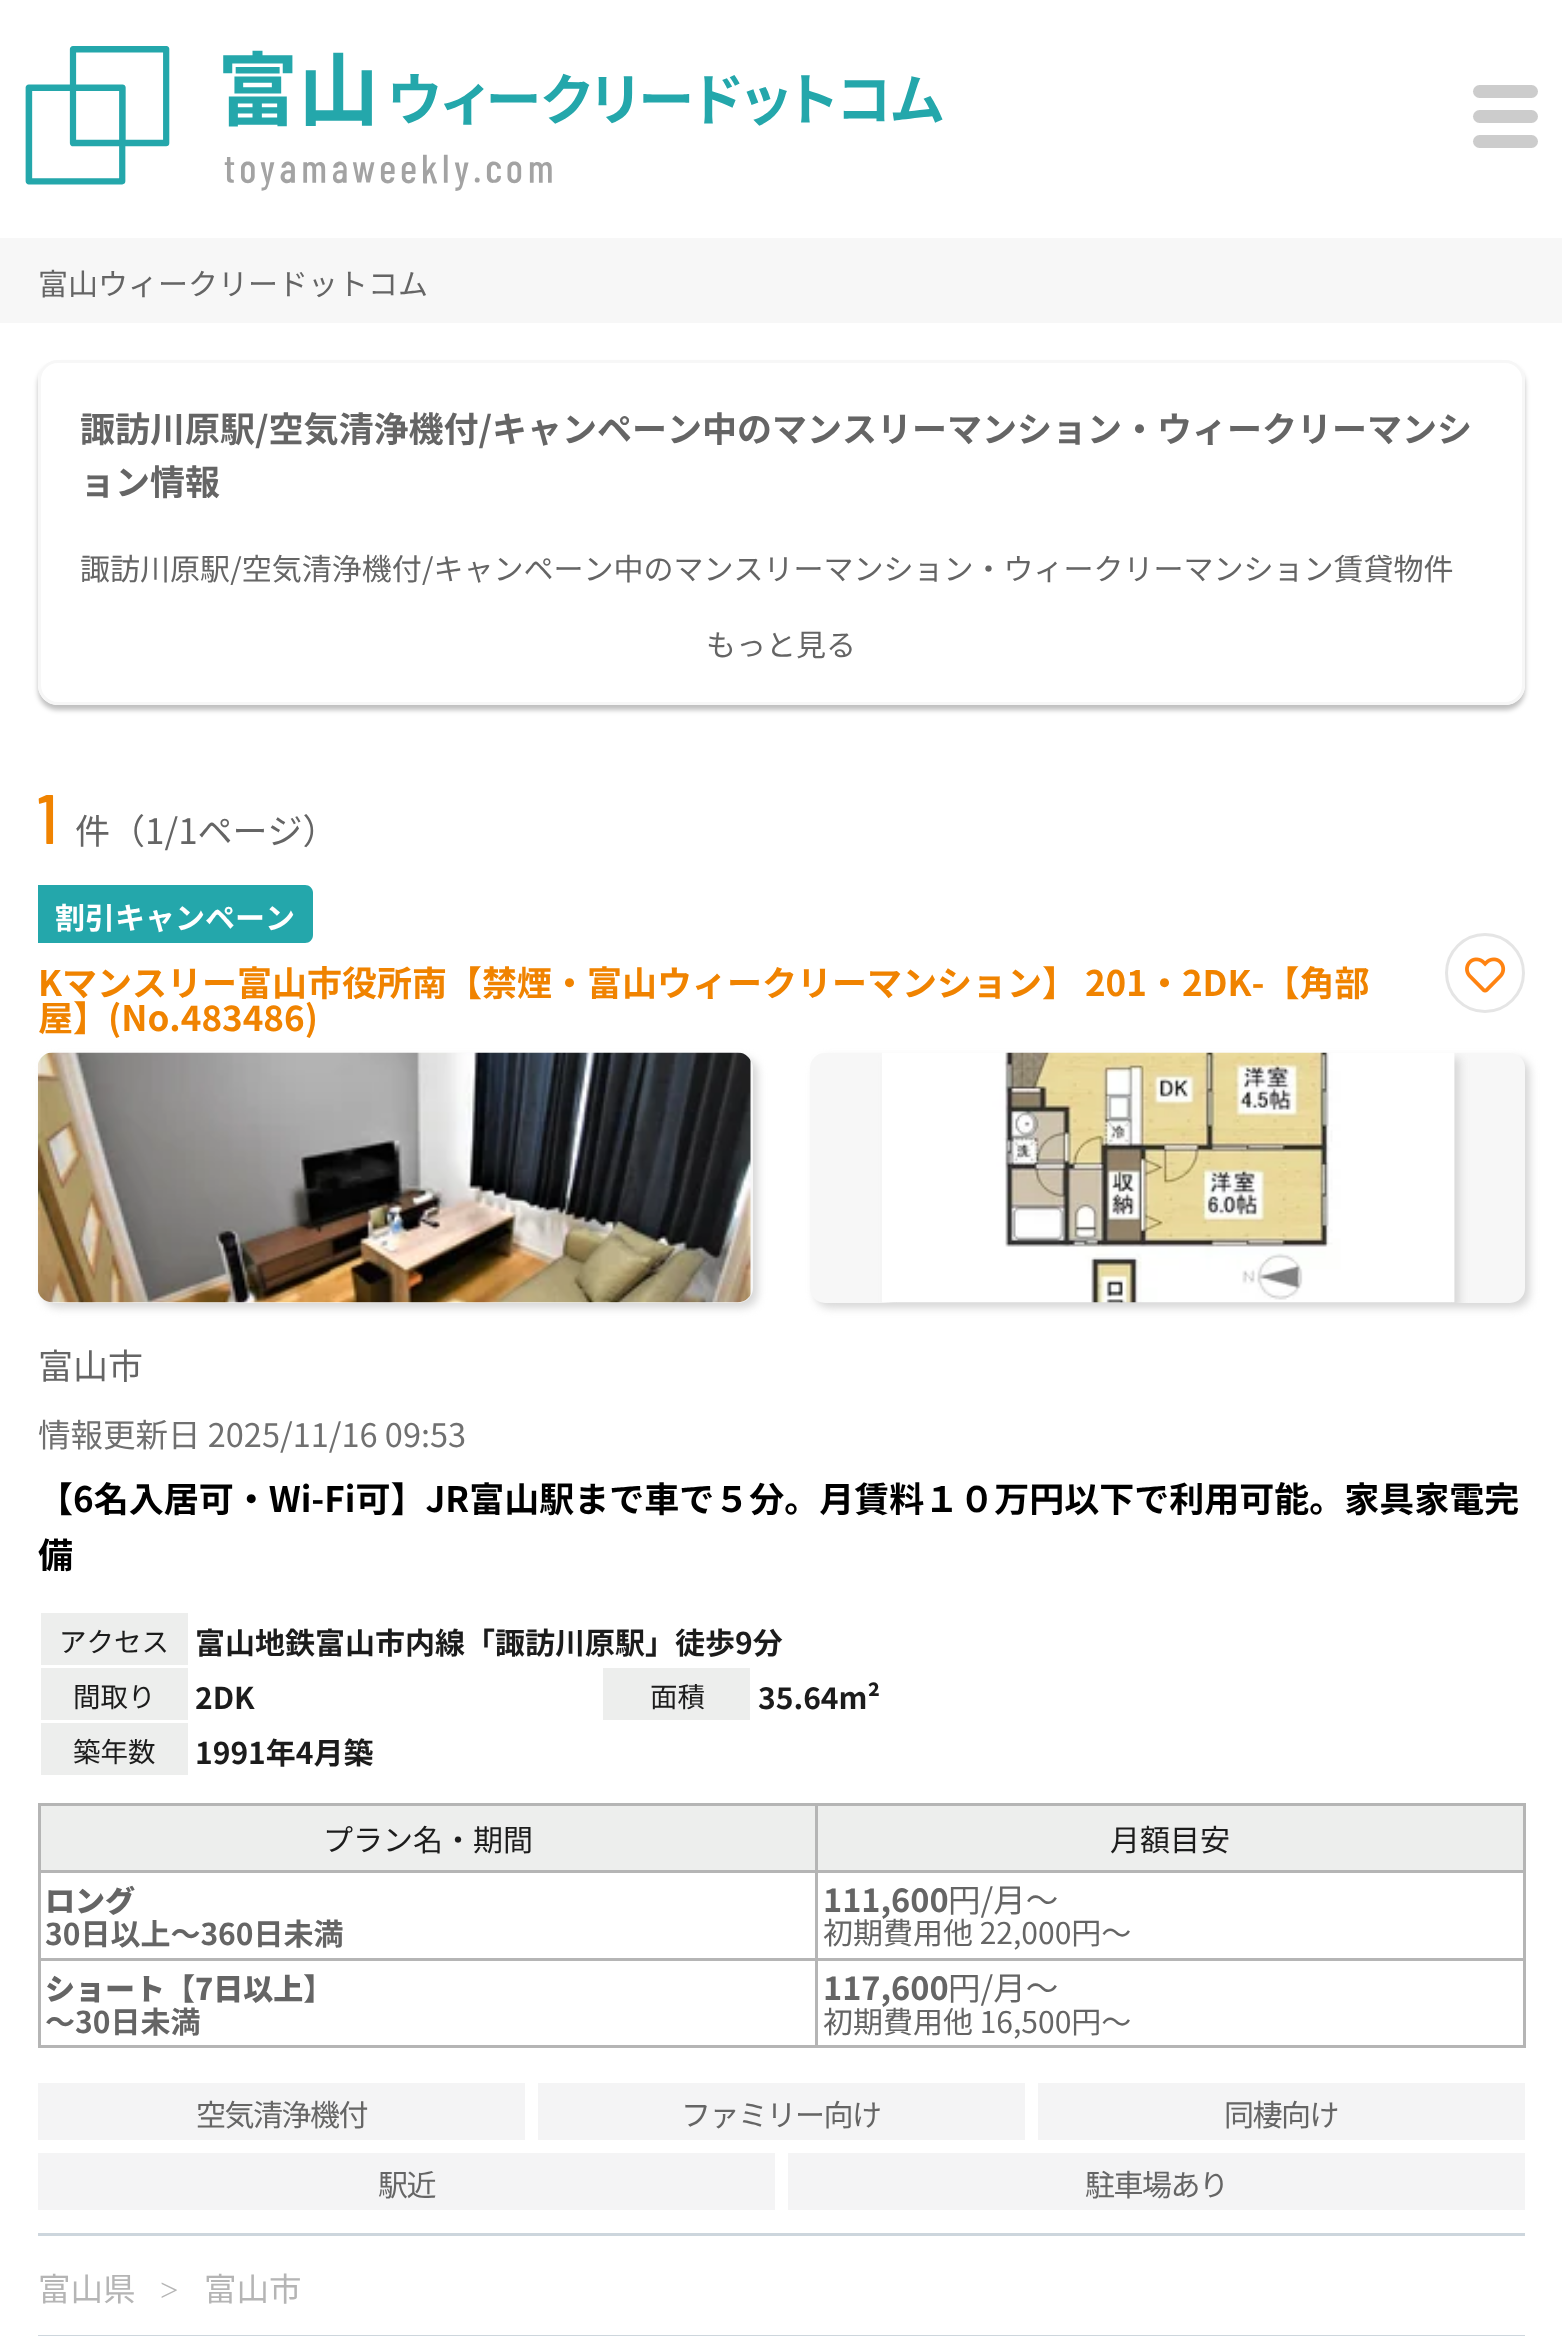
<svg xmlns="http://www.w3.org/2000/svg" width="1562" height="2336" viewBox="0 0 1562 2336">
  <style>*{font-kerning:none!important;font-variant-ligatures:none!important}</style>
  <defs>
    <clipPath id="clip1"><path d="M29 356H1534V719H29ZM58 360H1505C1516 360 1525 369 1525 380V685C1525 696 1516 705 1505 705H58C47 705 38 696 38 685V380C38 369 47 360 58 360Z" clip-rule="evenodd"/></clipPath>
    <clipPath id="clip2"><rect x="80" y="548" width="1403" height="37"/></clipPath>
    <clipPath id="clip3"><rect x="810" y="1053" width="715" height="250" rx="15"/></clipPath>
  </defs>
  <rect width="100%" height="100%" fill="rgb(255,255,255)"/>
  <image x="25" y="46" width="918" height="145" href="pic1.png"/>
  <rect x="1473" y="85" width="65" height="13" rx="6.5" fill="rgb(204,204,204)"/>
  <rect x="1473" y="110" width="65" height="13" rx="6.5" fill="rgb(204,204,204)"/>
  <rect x="1473" y="135" width="65" height="13" rx="6.5" fill="rgb(204,204,204)"/>
  <rect x="0" y="238" width="1562" height="85" fill="rgb(247,247,247)"/>
  <text x="38" y="295" font-family="Noto Sans JP" font-size="30" fill="rgb(101,101,101)">富山ウィークリードットコム</text>
  <g clip-path="url(#clip1)">
    <rect x="38" y="365" width="1487" height="345" rx="20" fill="rgba(0,0,0,0.25)" filter="blur(2.5px)"/>
  </g>
  <rect x="39.5" y="361.5" width="1484" height="342" rx="18.5" fill="none" stroke="rgb(247,247,247)" stroke-width="3"/>
  <g font-family="Noto Sans JP" font-size="35" font-weight="bold" fill="rgb(101,101,101)">
    <text>
      <tspan x="80" y="442">諏訪川原駅/空気清浄機付/キャンペーン中のマンスリーマンション・ウィークリーマンシ</tspan>
      <tspan x="80" y="495">ョン情報</tspan>
    </text>
  </g>
  <g clip-path="url(#clip2)">
    <text x="80" y="580" font-family="Noto Sans JP" font-size="30" fill="rgb(101,101,101)">諏訪川原駅/空気清浄機付/キャンペーン中のマンスリーマンション・ウィークリーマンション賃貸物件</text>
  </g>
  <text x="706" y="656" font-family="Noto Sans JP" font-size="30" fill="rgb(101,101,101)">もっと見る</text>
  <text x="38" y="844" font-family="Barlow Condensed" font-size="70" font-weight="500" letter-spacing="4" fill="rgb(240,131,0)">1</text>
  <text x="75" y="844" font-family="Noto Sans JP" font-size="35" fill="rgb(101,101,101)">件（1/1ページ）</text>
  <path d="M38 885H305C309.5 885 313 888.5 313 893V935C313 939.5 309.5 943 305 943H38Z" fill="rgb(36,167,171)"/>
  <text x="55" y="929" font-family="Noto Sans JP" font-size="30" font-weight="bold" fill="rgb(255,255,255)">割引キャンペーン</text>
  <text x="38" y="996" font-family="Noto Sans JP" font-size="35" font-weight="bold" fill="rgb(240,131,0)">Kマンスリー富山市役所南【禁煙・富山ウィークリーマンション】 201・2DK-【角部</text>
  <circle cx="1485" cy="973" r="38.5" fill="none" stroke="rgb(229,229,229)" stroke-width="3"/>
  <image x="1465" y="957" width="41" height="36" href="pic2.png"/>
  <text x="38" y="1031" font-family="Noto Sans JP" font-size="35" font-weight="bold" fill="rgb(240,131,0)">屋】(No.483486)</text>
  <rect x="43" y="1058" width="715" height="250" rx="15" fill="rgb(215,215,215)" filter="blur(4px)"/>
  <rect x="38" y="1053" width="715" height="250" rx="15" fill="rgb(247,247,247)"/>
  <image x="38" y="1052" width="713" height="251" href="pic3.png"/>
  <rect x="815" y="1058" width="715" height="250" rx="15" fill="rgb(215,215,215)" filter="blur(4px)"/>
  <rect x="810" y="1053" width="715" height="250" rx="15" fill="rgb(247,247,247)"/>
  <g clip-path="url(#clip3)">
    <rect x="888" y="1058" width="572" height="250" fill="rgb(215,215,215)" filter="blur(4px)"/>
  </g>
  <image x="882" y="1052" width="573" height="251" href="pic4.png"/>
  <text x="38" y="1379" font-family="Noto Sans JP" font-size="35" fill="rgb(101,101,101)">富山市</text>
  <text x="38" y="1447" font-family="Noto Sans JP" font-size="32.5" fill="rgb(112,112,112)">情報更新日 2025/11/16 09:53</text>
  <g font-family="Noto Sans JP" font-size="35" font-weight="bold" fill="rgb(0,0,0)">
    <text>
      <tspan x="38" y="1512">【6名入居可・Wi-Fi可】JR富山駅まで車で５分。月賃料１０万円以下で利用可能。家具家電完</tspan>
      <tspan x="38" y="1568">備</tspan>
    </text>
  </g>
  <rect x="41" y="1613" width="147" height="52" fill="rgb(237,238,237)"/>
  <text x="59" y="1652" font-family="Noto Sans JP" font-size="27.5" fill="rgb(28,28,28)">アクセス</text>
  <text x="195" y="1654" font-family="Noto Sans JP" font-size="30" font-weight="bold" fill="rgb(28,28,28)">富山地鉄富山市内線「諏訪川原駅」徒歩9分</text>
  <rect x="41" y="1668" width="147" height="52" fill="rgb(237,238,237)"/>
  <text x="73" y="1707" font-family="Noto Sans JP" font-size="27.5" fill="rgb(28,28,28)">間取り</text>
  <text x="195" y="1709" font-family="Noto Sans JP" font-size="30" font-weight="bold" fill="rgb(28,28,28)">2DK</text>
  <rect x="603" y="1668" width="147" height="52" fill="rgb(237,238,237)"/>
  <text x="650" y="1707" font-family="Noto Sans JP" font-size="27.5" fill="rgb(28,28,28)">面積</text>
  <text x="758" y="1709" font-family="Noto Sans JP" font-size="30" font-weight="bold" fill="rgb(28,28,28)">35.64m²</text>
  <rect x="41" y="1723" width="147" height="52" fill="rgb(237,238,237)"/>
  <text x="73" y="1762" font-family="Noto Sans JP" font-size="27.5" fill="rgb(28,28,28)">築年数</text>
  <text x="195" y="1764" font-family="Noto Sans JP" font-size="30" font-weight="bold" fill="rgb(28,28,28)">1991年4月築</text>
  <rect x="38" y="1803" width="1487" height="3" fill="rgb(181,181,181)"/>
  <rect x="38" y="1803" width="3" height="245" fill="rgb(181,181,181)"/>
  <rect x="41" y="1806" width="774" height="64" fill="rgb(237,238,237)"/>
  <rect x="1523" y="1803" width="3" height="245" fill="rgb(181,181,181)"/>
  <rect x="815" y="2045" width="710" height="3" fill="rgb(181,181,181)"/>
  <rect x="815" y="1958" width="3" height="90" fill="rgb(181,181,181)"/>
  <rect x="815" y="1958" width="710" height="3" fill="rgb(181,181,181)"/>
  <rect x="815" y="1870" width="3" height="90" fill="rgb(181,181,181)"/>
  <rect x="815" y="1870" width="710" height="3" fill="rgb(181,181,181)"/>
  <rect x="815" y="1803" width="3" height="70" fill="rgb(181,181,181)"/>
  <rect x="38" y="1870" width="780" height="3" fill="rgb(181,181,181)"/>
  <text x="323" y="1851" font-family="Noto Sans JP" font-size="30" fill="rgb(28,28,28)">プラン名・期間</text>
  <rect x="818" y="1806" width="705" height="64" fill="rgb(237,238,237)"/>
  <text x="1110" y="1851" font-family="Noto Sans JP" font-size="30" fill="rgb(28,28,28)">月額目安</text>
  <rect x="38" y="1958" width="780" height="3" fill="rgb(181,181,181)"/>
  <text x="45" y="1912" font-family="Noto Sans JP" font-size="30" font-weight="900" fill="rgb(101,101,101)">ロング</text>
  <text x="45" y="1945" font-family="Noto Sans JP" font-size="30" font-weight="bold" fill="rgb(101,101,101)">30日以上～360日未満</text>
  <text x="823" y="1912" font-family="Noto Sans JP" font-size="32.5" font-weight="bold" fill="rgb(101,101,101)">111,600</text>
  <text x="948" y="1912" font-family="Noto Sans JP" font-size="32.5" fill="rgb(101,101,101)">円/月～</text>
  <text x="823" y="1944" font-family="Noto Sans JP" font-size="30" fill="rgb(101,101,101)">初期費用他 22,000円～</text>
  <rect x="38" y="2045" width="780" height="3" fill="rgb(181,181,181)"/>
  <text x="45" y="2000" font-family="Noto Sans JP" font-size="30" font-weight="900" fill="rgb(101,101,101)">ショート【7日以上】</text>
  <text x="45" y="2033" font-family="Noto Sans JP" font-size="30" font-weight="bold" fill="rgb(101,101,101)">～30日未満</text>
  <text x="823" y="2000" font-family="Noto Sans JP" font-size="32.5" font-weight="bold" fill="rgb(101,101,101)">117,600</text>
  <text x="948" y="2000" font-family="Noto Sans JP" font-size="32.5" fill="rgb(101,101,101)">円/月～</text>
  <text x="823" y="2033" font-family="Noto Sans JP" font-size="30" fill="rgb(101,101,101)">初期費用他 16,500円～</text>
  <rect x="38" y="2083" width="487" height="57" fill="rgb(244,244,245)"/>
  <text x="196" y="2126" font-family="Noto Sans JP" font-size="30" letter-spacing="-1.5" fill="rgb(101,101,101)">空気清浄機付</text>
  <rect x="538" y="2083" width="487" height="57" fill="rgb(244,244,245)"/>
  <text x="681" y="2126" font-family="Noto Sans JP" font-size="30" letter-spacing="-1.5" fill="rgb(101,101,101)">ファミリー向け</text>
  <rect x="1038" y="2083" width="487" height="57" fill="rgb(244,244,245)"/>
  <text x="1224" y="2126" font-family="Noto Sans JP" font-size="30" letter-spacing="-1.5" fill="rgb(101,101,101)">同棲向け</text>
  <rect x="38" y="2153" width="737" height="57" fill="rgb(244,244,245)"/>
  <text x="378" y="2196" font-family="Noto Sans JP" font-size="30" letter-spacing="-1.5" fill="rgb(101,101,101)">駅近</text>
  <rect x="788" y="2153" width="737" height="57" fill="rgb(244,244,245)"/>
  <text x="1085" y="2196" font-family="Noto Sans JP" font-size="30" letter-spacing="-1.5" fill="rgb(101,101,101)">駐車場あり</text>
  <rect x="38" y="2233" width="1487" height="3" fill="rgb(205,214,221)"/>
  <rect x="38" y="2335" width="1487" height="1" fill="rgb(205,214,221)"/>
  <text x="38" y="2301" font-family="Noto Sans JP" font-size="32.5" fill="rgb(181,181,181)">富山県</text>
  <text x="160" y="2301" font-family="Liberation Serif" font-size="32.5" fill="rgb(181,181,181)">&gt;</text>
  <text x="204" y="2301" font-family="Noto Sans JP" font-size="32.5" fill="rgb(181,181,181)">富山市</text>
</svg>
